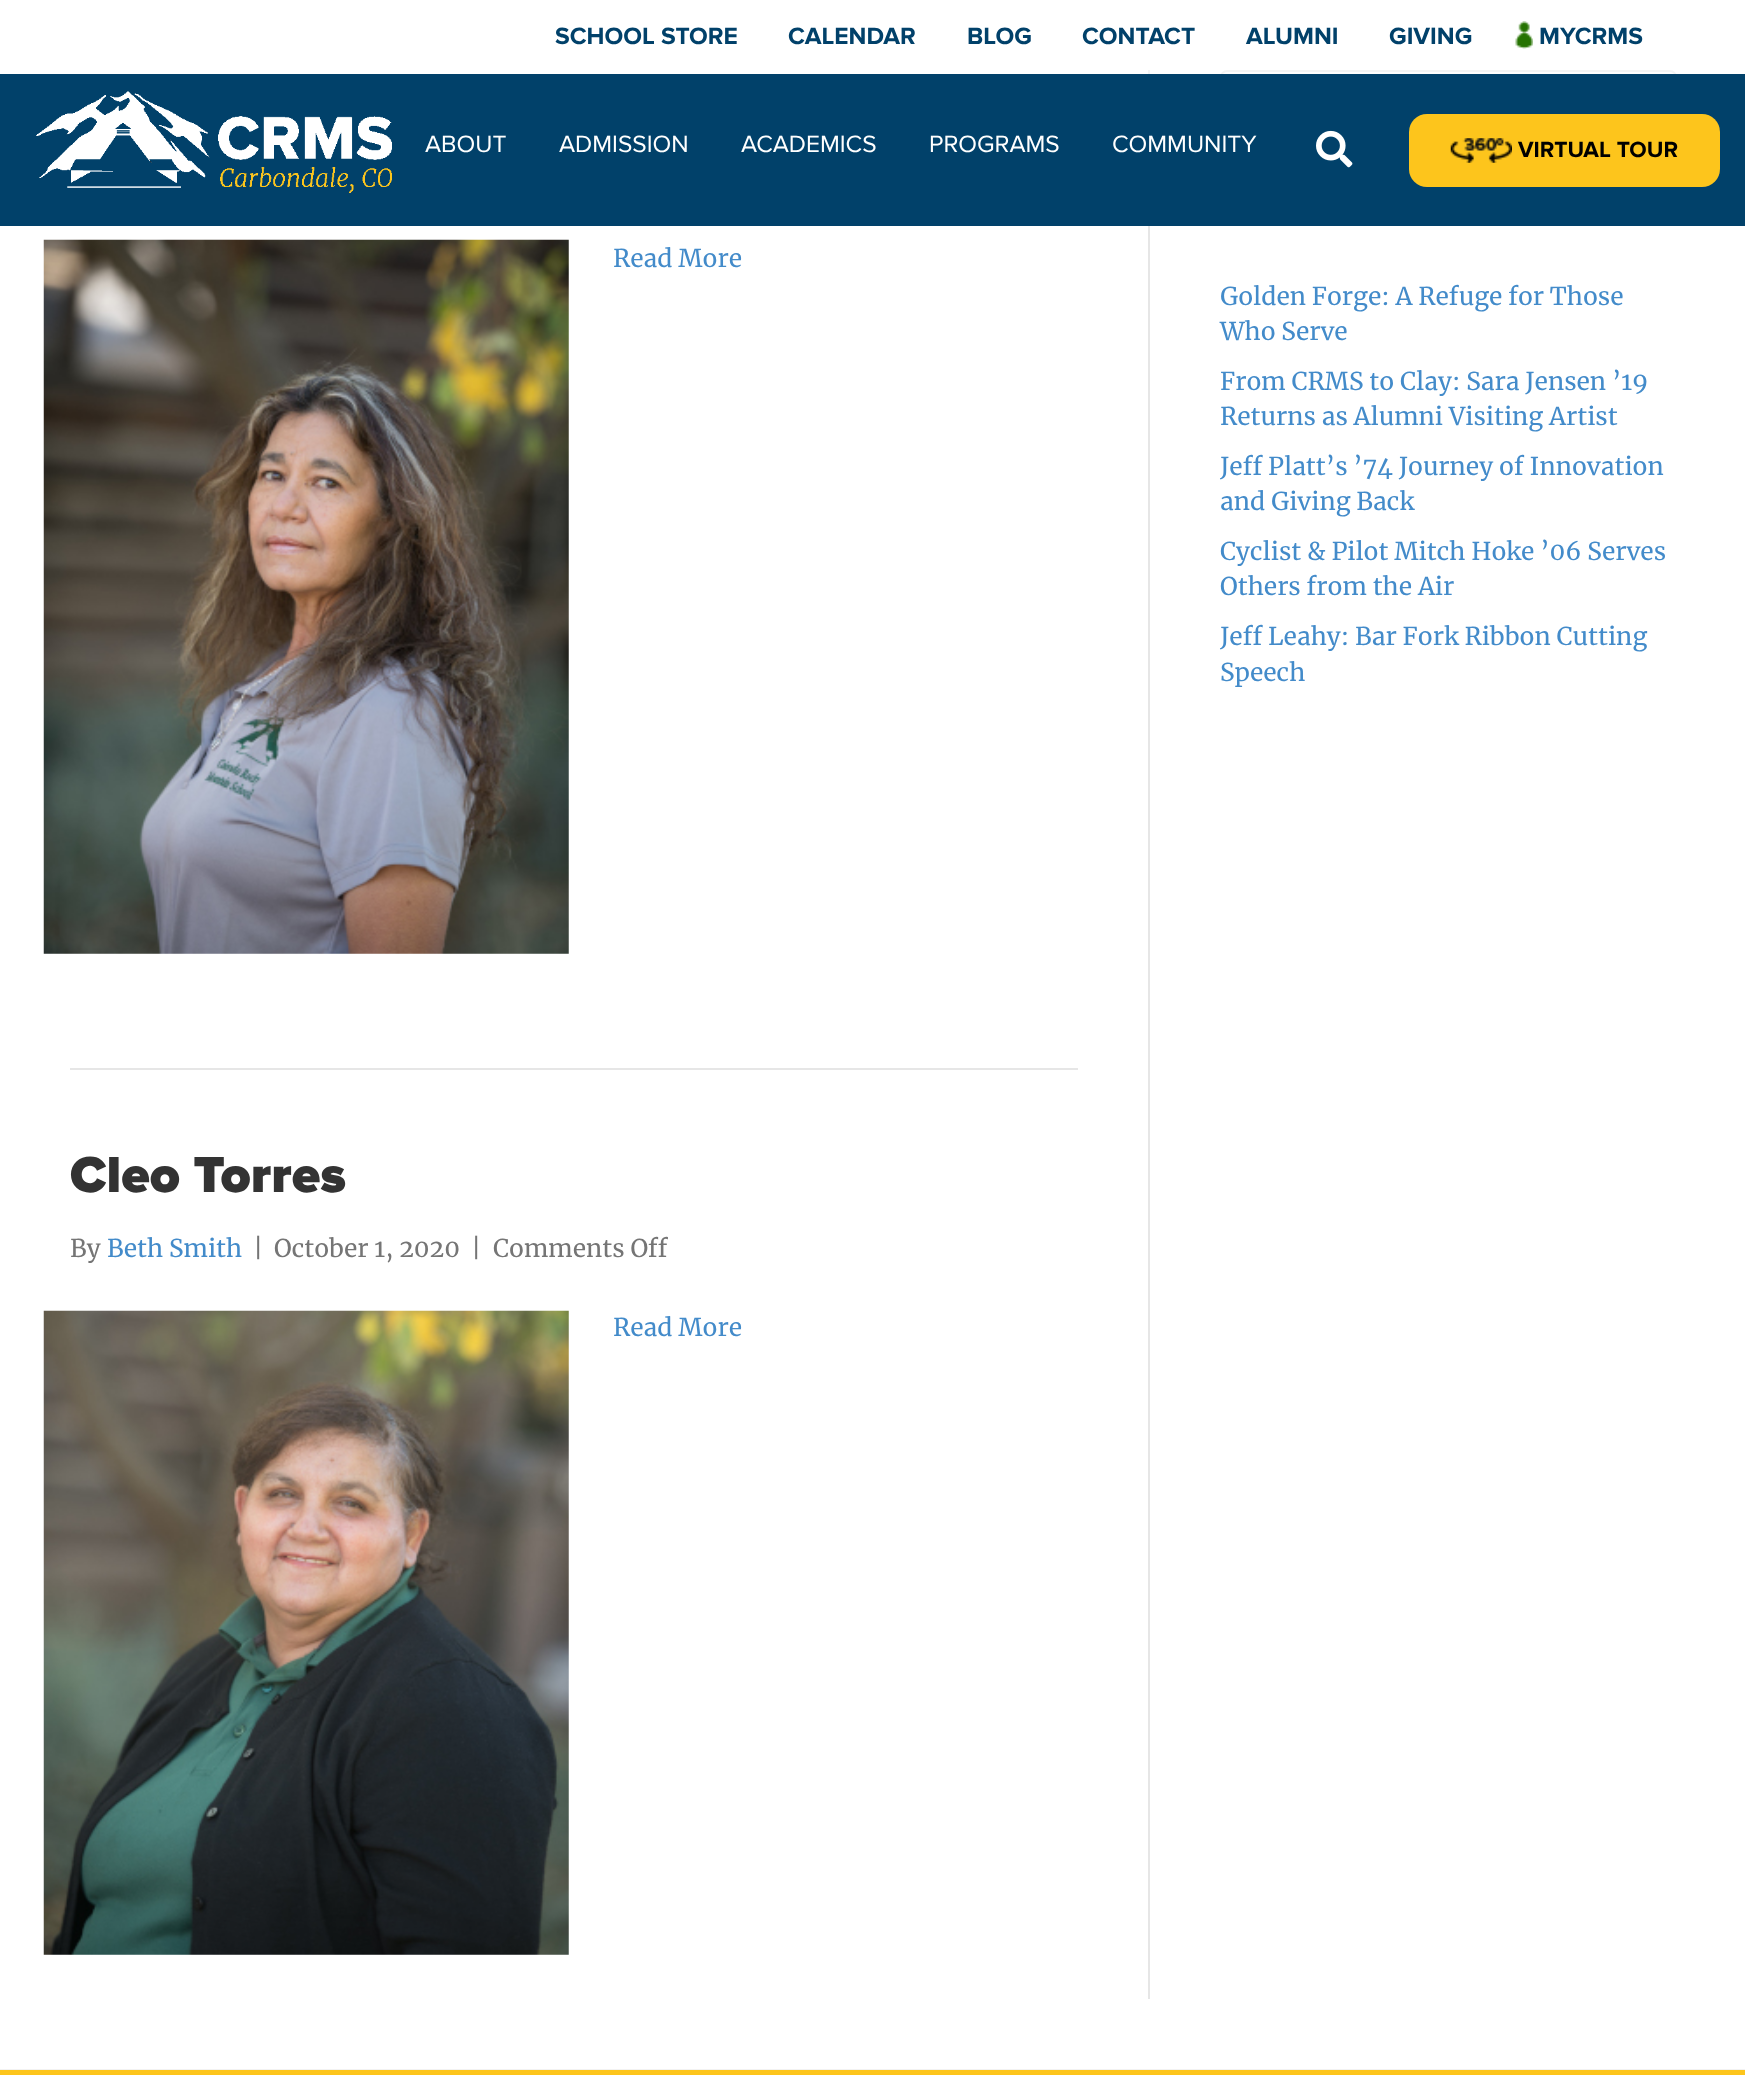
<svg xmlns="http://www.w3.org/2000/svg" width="1745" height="2075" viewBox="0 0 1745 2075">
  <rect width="100%" height="100%" fill="rgb(242,242,242)"/>
  <rect x="0" y="0" width="1745" height="2069" fill="rgb(255,255,255)"/>
  <rect x="1148" y="70" width="2" height="1929" fill="rgb(230,230,230)"/>
  <rect x="1221" y="71" width="455" height="58" rx="6" fill="rgb(252,252,252)" stroke="rgb(230,230,230)" stroke-width="2"/>
  <rect x="1148" y="70" width="528" height="4" fill="rgba(255,255,255,0.55)"/>
  <g font-family="Proxima Nova" font-size="24.5" font-weight="bold" fill="rgb(1,65,106)">
    <text x="555" y="44">SCHOOL STORE</text>
    <text x="788" y="44">CALENDAR</text>
    <text x="967" y="44">BLOG</text>
    <text x="1082" y="44">CONTACT</text>
    <text x="1246" y="44">ALUMNI</text>
    <text x="1389" y="44">GIVING</text>
  </g>
  <image x="1515" y="21" width="18" height="28" href="pic1.png"/>
  <text x="1539" y="44" font-family="Proxima Nova" font-size="24.5" font-weight="bold" fill="rgb(1,65,106)">MYCRMS</text>
  <rect x="0" y="74" width="1745" height="152" fill="rgb(1,65,106)"/>
  <image x="36" y="91" width="356" height="102" href="pic2.png"/>
  <g font-family="Proxima Nova" font-size="24.5" fill="rgb(255,255,255)">
    <text x="425" y="152">ABOUT</text>
    <text x="559" y="152">ADMISSION</text>
    <text x="741" y="152">ACADEMICS</text>
    <text x="929" y="152">PROGRAMS</text>
    <text x="1112" y="152">COMMUNITY</text>
  </g>
  <image x="1316" y="130" width="37" height="38" href="pic3.png"/>
  <rect x="1409" y="114" width="311" height="73" rx="18" fill="rgb(253,197,28)"/>
  <image x="1450" y="138" width="62" height="25" href="pic4.png"/>
  <text x="1518" y="157" font-family="Proxima Nova" font-size="22.75" font-weight="bold" fill="rgb(0,0,0)">VIRTUAL TOUR</text>
  <rect x="70" y="1068" width="1008" height="2" fill="rgb(230,230,230)"/>
  <image x="43" y="239" width="526" height="715" href="pic5.png"/>
  <text x="613" y="267" font-family="Merriweather" font-size="24.5" fill="rgb(67,139,202)">Read More</text>
  <text x="70" y="1192" font-family="Proxima Nova" font-size="52.5" font-weight="900" fill="rgb(51,51,51)">Cleo Torres</text>
  <text x="70" y="1257" font-family="Merriweather" font-size="24.5" fill="rgb(117,117,117)">By</text>
  <text x="107" y="1257" font-family="Merriweather" font-size="24.5" fill="rgb(67,139,202)">Beth Smith</text>
  <g font-family="Merriweather" font-size="24.5" fill="rgb(117,117,117)">
    <text x="253" y="1257">|</text>
    <text x="274" y="1257">October 1, 2020</text>
    <text x="471" y="1257">|</text>
    <text x="493" y="1257">Comments Off</text>
  </g>
  <image x="43" y="1310" width="526" height="645" href="pic6.png"/>
  <g font-family="Merriweather" font-size="24.5" fill="rgb(67,139,202)">
    <text x="613" y="1336">Read More</text>
    <text>
      <tspan x="1220" y="305">Golden Forge: A Refuge for Those</tspan>
      <tspan x="1220" y="340">Who Serve</tspan>
    </text>
    <text>
      <tspan x="1220" y="390">From CRMS to Clay: Sara Jensen ’19</tspan>
      <tspan x="1220" y="425">Returns as Alumni Visiting Artist</tspan>
    </text>
    <text>
      <tspan x="1220" y="475">Jeff Platt’s ’74 Journey of Innovation</tspan>
      <tspan x="1220" y="510">and Giving Back</tspan>
    </text>
    <text>
      <tspan x="1220" y="560">Cyclist &amp; Pilot Mitch Hoke ’06 Serves</tspan>
      <tspan x="1220" y="595">Others from the Air</tspan>
    </text>
    <text>
      <tspan x="1220" y="645">Jeff Leahy: Bar Fork Ribbon Cutting</tspan>
      <tspan x="1220" y="681">Speech</tspan>
    </text>
  </g>
  <rect x="0" y="2070" width="1745" height="5" fill="rgb(253,197,28)"/>
</svg>
